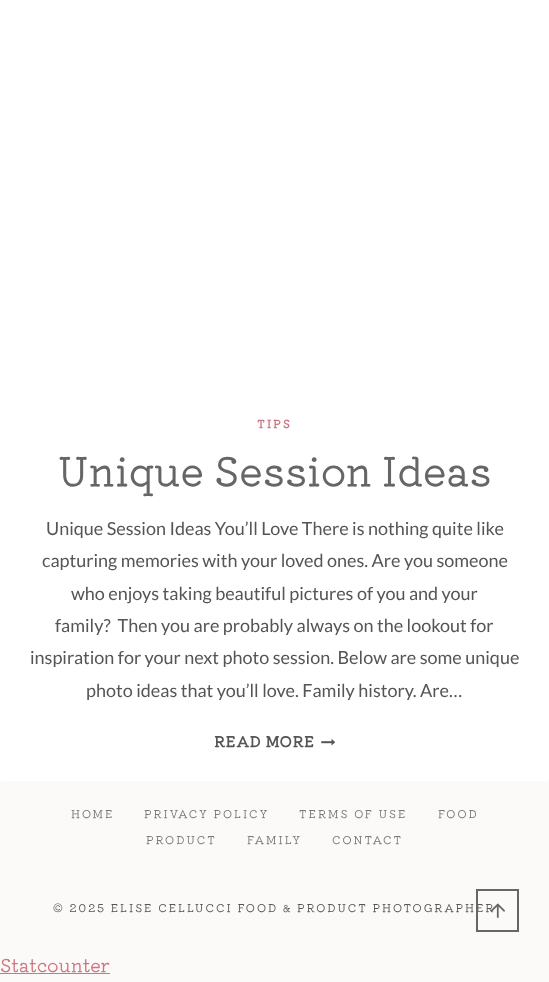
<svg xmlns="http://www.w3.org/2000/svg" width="549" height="982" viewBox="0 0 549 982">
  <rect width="100%" height="100%" fill="rgb(252,250,249)"/>
  <rect x="0" y="-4" width="549" height="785" rx="4" fill="rgb(255,255,255)"/>
  <text x="257" y="428" font-family="Kiwi Maru" font-size="11" font-weight="bold" letter-spacing="2" fill="rgb(206,119,131)">TIPS</text>
  <text x="58" y="486" font-family="Kiwi Maru" font-size="40" fill="rgb(102,102,102)">Unique Session Ideas</text>
  <g font-family="Lato" font-size="18" fill="rgb(85,85,85)">
    <text x="46" y="535">Unique Session Ideas You’ll Love There is nothing quite like</text>
    <text x="42" y="567">capturing memories with your loved ones. Are you someone</text>
    <text x="71" y="600">who enjoys taking beautiful pictures of you and your</text>
    <text x="55" y="632" xml:space="preserve">family?  Then you are probably always on the lookout for</text>
    <text x="30" y="664">inspiration for your next photo session. Below are some unique</text>
    <text x="86" y="697">photo ideas that you’ll love. Family history. Are…</text>
  </g>
  <text x="214" y="747" font-family="Kiwi Maru" font-size="14.5" font-weight="bold" letter-spacing="0.75" fill="rgb(85,85,85)">READ MORE</text>
  <image x="321" y="739" width="14" height="7" href="pic1.png"/>
  <g font-family="Kiwi Maru" font-size="11" letter-spacing="2" fill="rgb(119,119,119)">
    <text x="71" y="818">HOME</text>
    <text x="144" y="818">PRIVACY POLICY</text>
    <text x="299" y="818">TERMS OF USE</text>
    <text x="438" y="818">FOOD</text>
    <text x="146" y="844">PRODUCT</text>
    <text x="247" y="844">FAMILY</text>
    <text x="332" y="844">CONTACT</text>
  </g>
  <text x="53" y="912" font-family="Kiwi Maru" font-size="11" letter-spacing="2" fill="rgb(85,85,85)">© 2025 ELISE CELLUCCI FOOD &amp; PRODUCT PHOTOGRAPHER</text>
  <rect x="477" y="890" width="41" height="41" fill="none" stroke="rgb(102,102,102)" stroke-width="2"/>
  <image x="490" y="903" width="15" height="15" href="pic2.png"/>
  <text x="0" y="972" font-family="Kiwi Maru" font-size="18" fill="rgb(206,119,131)">Statcounter</text>
  <rect x="0" y="973" width="110" height="1" fill="rgb(206,119,131)"/>
</svg>
